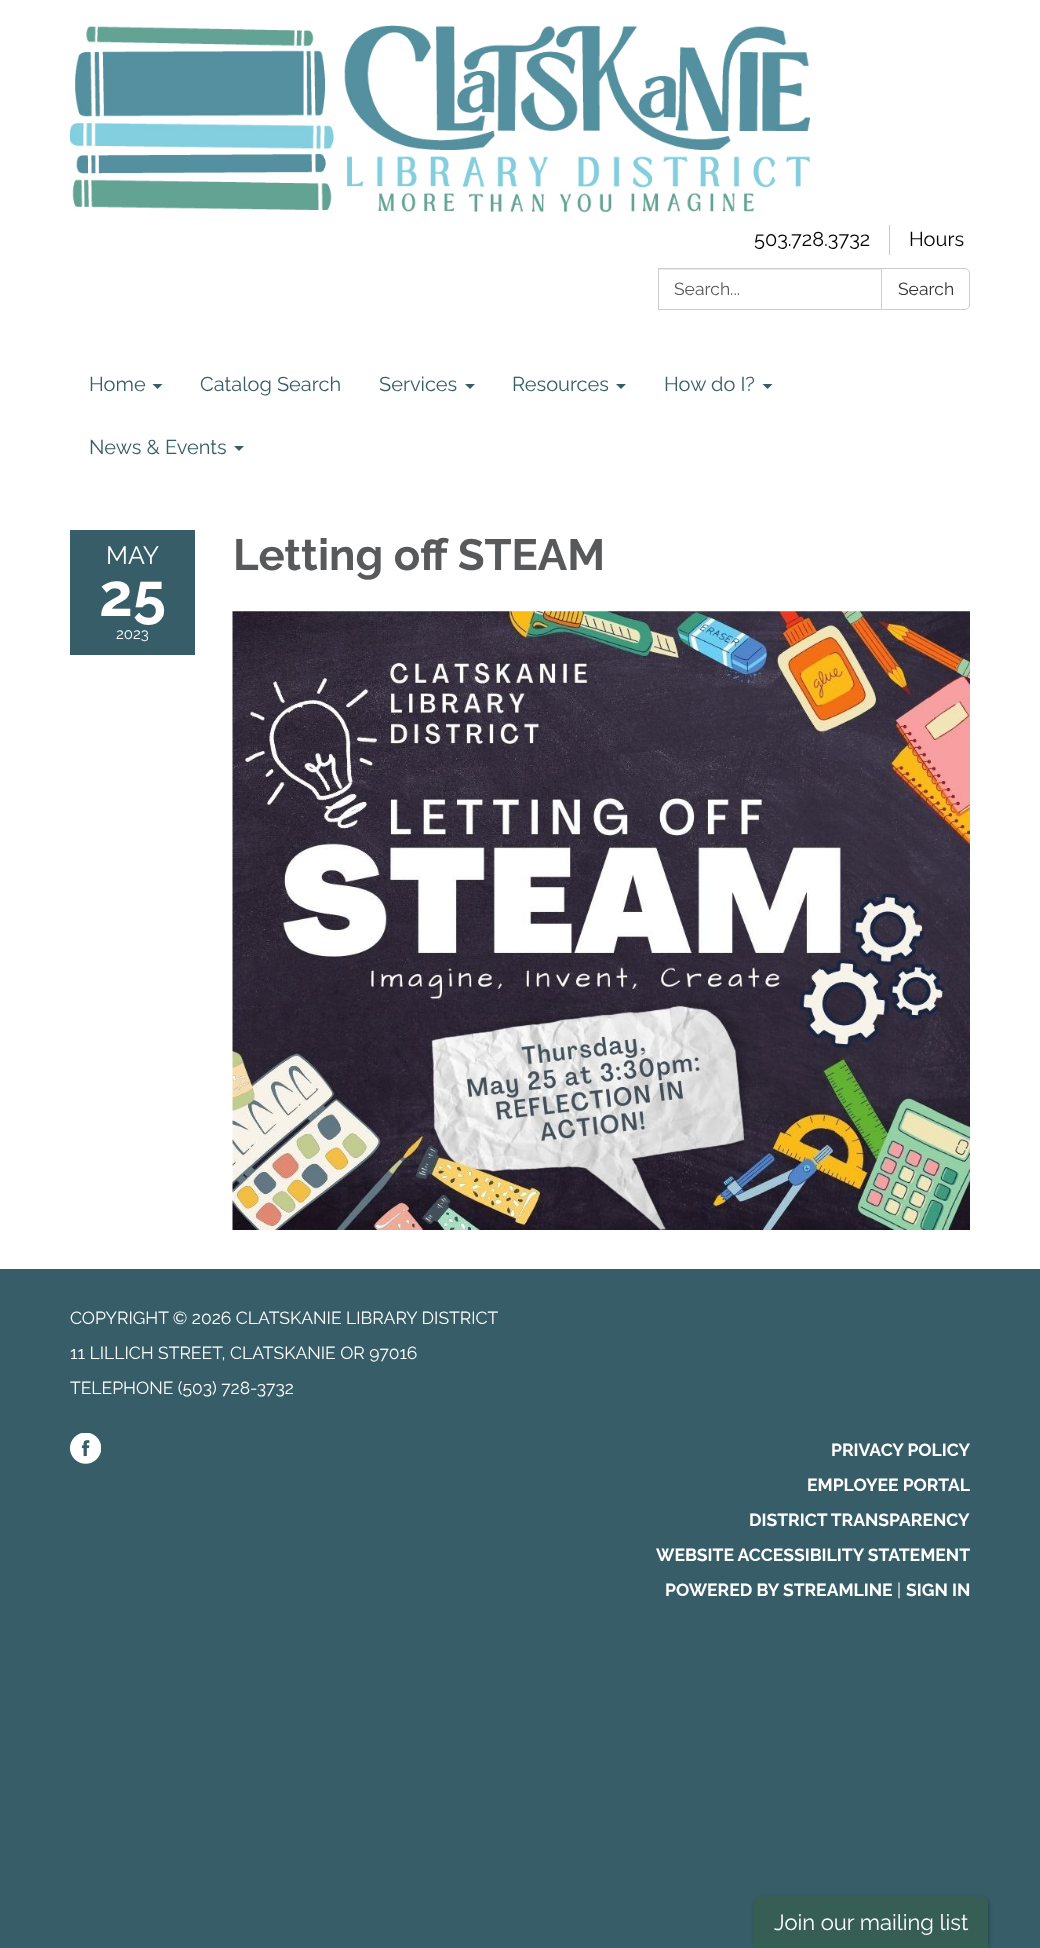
<svg xmlns="http://www.w3.org/2000/svg" width="1040" height="1948" viewBox="0 0 1040 1948">
  <rect width="100%" height="100%" fill="rgb(55,94,104)"/>
  <rect x="0" y="0" width="1040" height="354" fill="rgb(255,255,255)"/>
  <image x="70" y="25" width="740" height="188" href="pic1.png"/>
  <text x="754" y="246" font-family="Raleway" font-size="20" fill="rgb(0,0,0)">503.728.3732</text>
  <rect x="889" y="225" width="1" height="30" fill="rgb(200,201,203)"/>
  <text x="909" y="246" font-family="Raleway" font-size="20" fill="rgb(0,0,0)">Hours</text>
  <rect x="659" y="269" width="222" height="1" fill="rgb(236,236,236)"/>
  <rect x="658.5" y="268.5" width="224" height="41" fill="none" stroke="rgb(204,204,204)"/>
  <text x="674" y="295" font-family="Raleway" font-size="17.5" fill="rgb(88,89,91)">Search...</text>
  <path d="M881.5 268.5H965C967.5 268.5 969.5 270.5 969.5 273V305C969.5 307.5 967.5 309.5 965 309.5H881.5Z" fill="rgb(255,255,255)" stroke="rgb(204,204,204)"/>
  <text x="898" y="295" font-family="Raleway" font-size="17.5" fill="rgb(51,51,51)">Search</text>
  <rect x="0" y="354" width="1040" height="915" fill="rgb(255,255,255)"/>
  <text x="89" y="391" font-family="Raleway" font-size="20" fill="rgb(55,94,104)">Home</text>
  <path d="M152.5 384H162.5L157.5 389Z" fill="rgb(55,94,104)"/>
  <g font-family="Raleway" font-size="20" fill="rgb(55,94,104)">
    <text x="200" y="391">Catalog Search</text>
    <text x="379" y="391">Services</text>
  </g>
  <path d="M465 384H475L470 389Z" fill="rgb(55,94,104)"/>
  <text x="512" y="391" font-family="Raleway" font-size="20" fill="rgb(55,94,104)">Resources</text>
  <path d="M616 384H626L621 389Z" fill="rgb(55,94,104)"/>
  <text x="664" y="391" font-family="Raleway" font-size="20" fill="rgb(55,94,104)">How do I?</text>
  <path d="M762.5 384H772.5L767.5 389Z" fill="rgb(55,94,104)"/>
  <text x="89" y="454" font-family="Raleway" font-size="20" fill="rgb(55,94,104)">News &amp; Events</text>
  <path d="M234 446H244L239 451Z" fill="rgb(55,94,104)"/>
  <rect x="70" y="530" width="125" height="125" fill="rgb(55,94,104)"/>
  <text x="106" y="564" font-family="Raleway" font-size="25" fill="rgb(255,255,255)">MAY</text>
  <text x="99" y="616" font-family="Raleway" font-size="60" font-weight="bold" fill="rgb(255,255,255)">25</text>
  <text x="116" y="639" font-family="Raleway" font-size="15" fill="rgb(255,255,255)">2023</text>
  <text x="233" y="570" font-family="Raleway" font-size="43.75" font-weight="bold" fill="rgb(88,89,91)">Letting off STEAM</text>
  <image x="232" y="611" width="738" height="619" href="pic2.png"/>
  <g font-family="Raleway" font-size="17.5" fill="rgb(255,255,255)">
    <text x="70" y="1324">COPYRIGHT © 2026 CLATSKANIE LIBRARY DISTRICT</text>
    <text x="70" y="1359">11 LILLICH STREET, CLATSKANIE OR 97016</text>
    <text x="70" y="1394">TELEPHONE (503) 728-3732</text>
  </g>
  <image x="70" y="1433" width="31" height="31" href="pic3.png"/>
  <g font-family="Raleway" font-size="17.5" font-weight="bold" fill="rgb(255,255,255)">
    <text x="831" y="1456">PRIVACY POLICY</text>
    <text x="807" y="1491">EMPLOYEE PORTAL</text>
    <text x="749" y="1526">DISTRICT TRANSPARENCY</text>
    <text x="656" y="1561">WEBSITE ACCESSIBILITY STATEMENT</text>
    <text x="665" y="1596">POWERED BY STREAMLINE</text>
  </g>
  <text x="897" y="1596" font-family="Raleway" font-size="17.5" fill="rgb(255,255,255)">|</text>
  <text x="906" y="1596" font-family="Raleway" font-size="17.5" font-weight="bold" fill="rgb(255,255,255)">SIGN IN</text>
  <rect x="755" y="1898" width="234" height="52" rx="8" fill="rgba(0,0,0,0.3)" filter="blur(2px)"/>
  <path d="M762 1896H980C984.5 1896 988 1899.5 988 1904V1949H754V1904C754 1899.5 757.5 1896 762 1896Z" fill="rgb(54,94,85)"/>
  <text x="774" y="1930" font-family="Raleway" font-size="22" fill="rgb(255,255,255)">Join our mailing list</text>
</svg>
